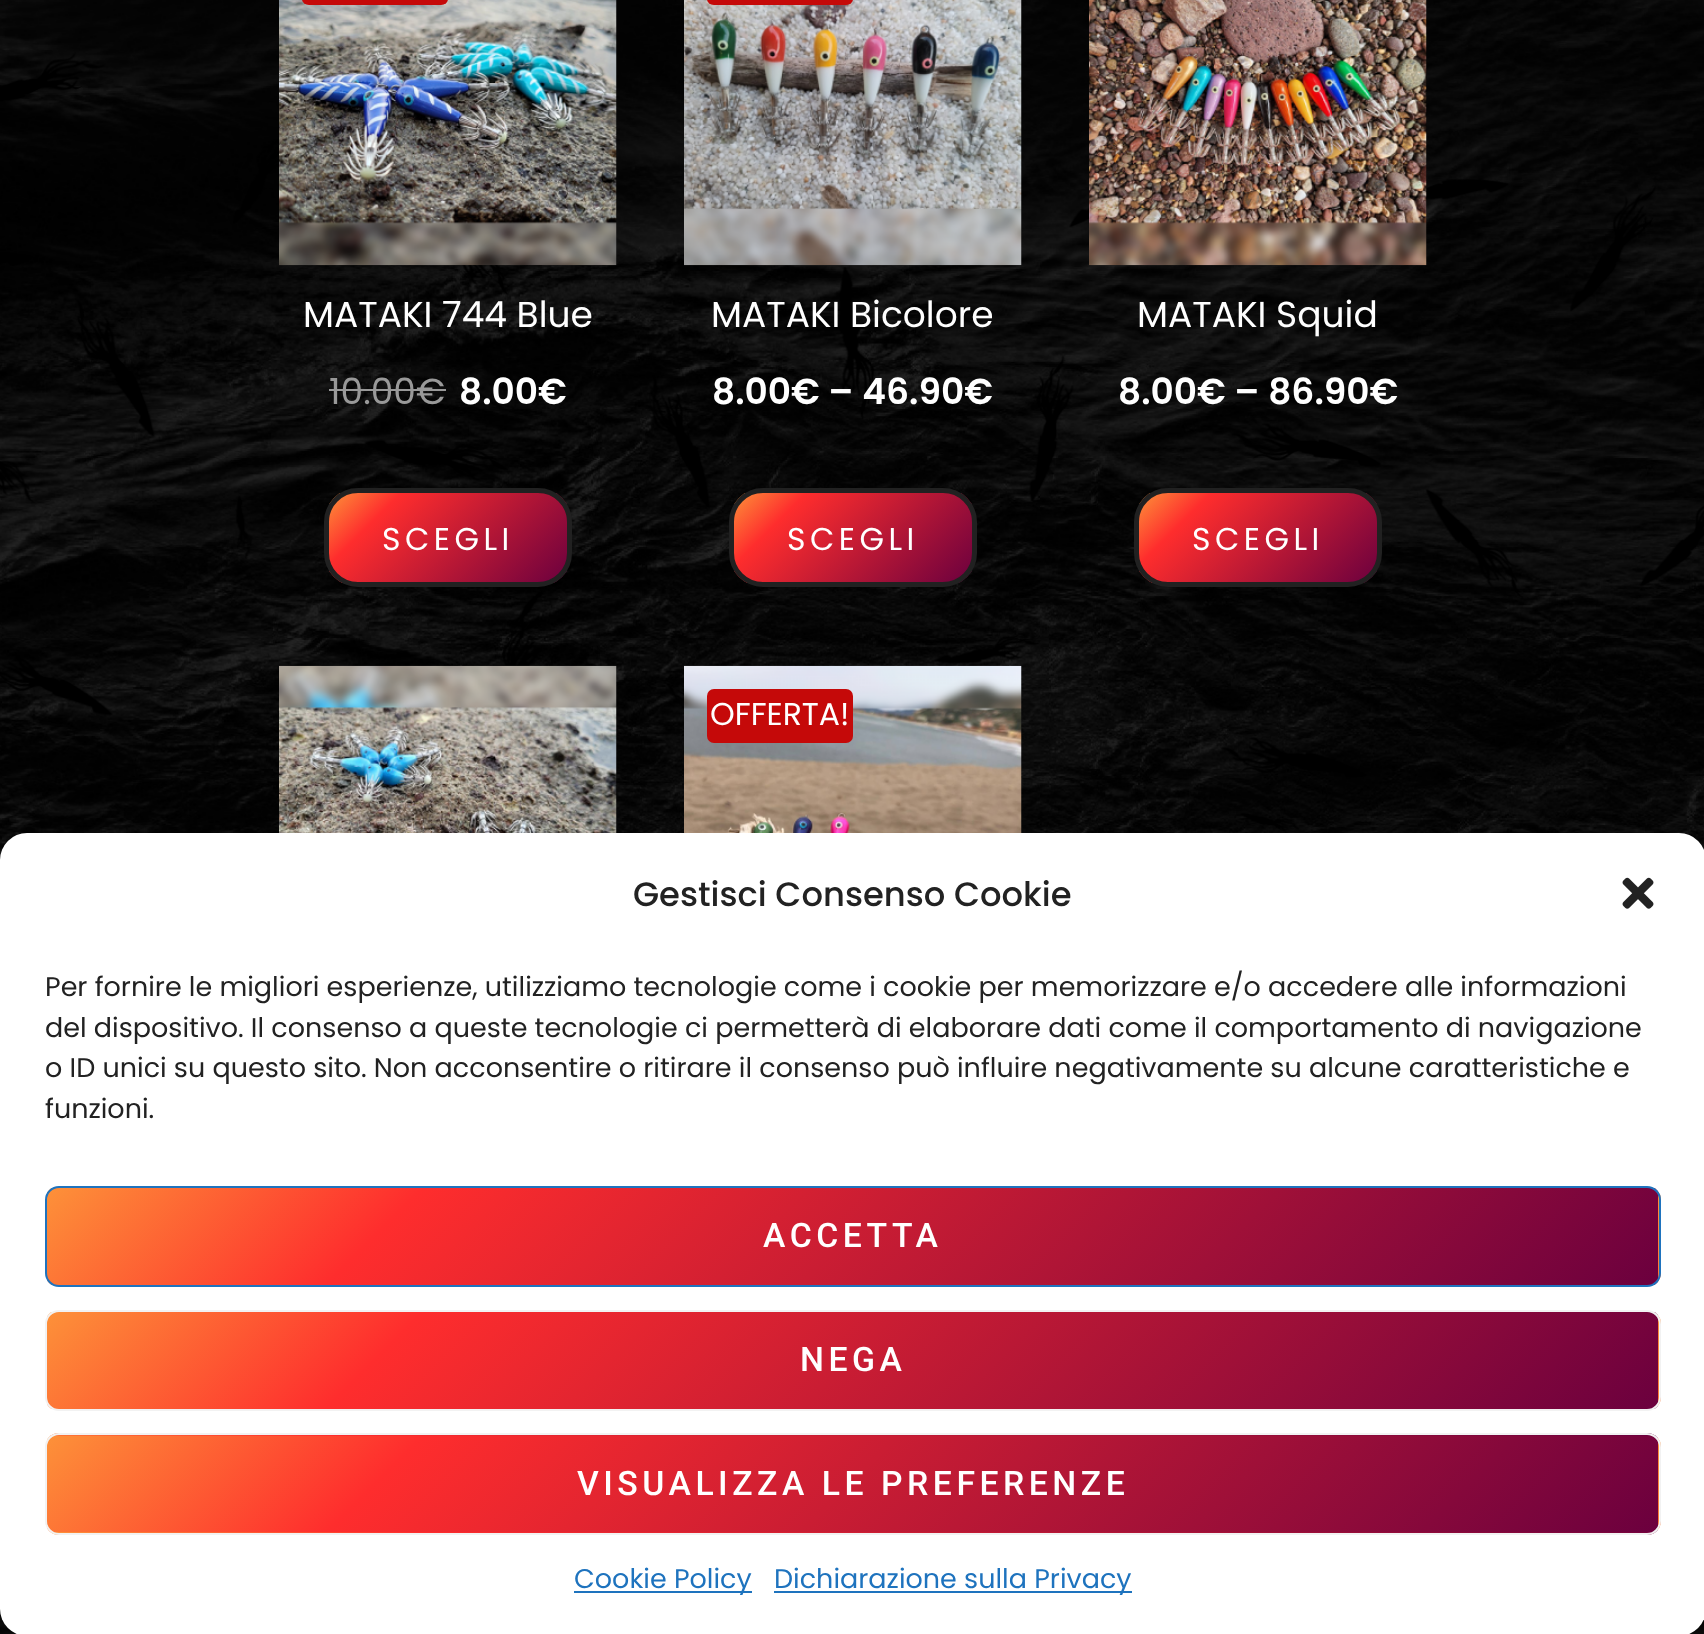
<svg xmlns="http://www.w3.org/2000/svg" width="1704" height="1634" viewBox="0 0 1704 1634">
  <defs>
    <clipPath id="clip1"><rect x="324" y="488" width="248" height="99" rx="34"/></clipPath>
    <linearGradient id="g1" gradientUnits="userSpaceOnUse" x1="366" y1="456" x2="530" y2="620"><stop offset="0" stop-color="rgb(253,145,57)"/><stop offset="0.22" stop-color="rgb(254,45,45)"/><stop offset="1" stop-color="rgb(107,0,62)"/></linearGradient>
    <clipPath id="clip2"><rect x="729" y="488" width="248" height="99" rx="34"/></clipPath>
    <linearGradient id="g2" gradientUnits="userSpaceOnUse" x1="771" y1="456" x2="935" y2="620"><stop offset="0" stop-color="rgb(253,145,57)"/><stop offset="0.22" stop-color="rgb(254,45,45)"/><stop offset="1" stop-color="rgb(107,0,62)"/></linearGradient>
    <clipPath id="clip3"><rect x="1134" y="488" width="248" height="99" rx="34"/></clipPath>
    <linearGradient id="g3" gradientUnits="userSpaceOnUse" x1="1176" y1="456" x2="1340" y2="620"><stop offset="0" stop-color="rgb(253,145,57)"/><stop offset="0.22" stop-color="rgb(254,45,45)"/><stop offset="1" stop-color="rgb(107,0,62)"/></linearGradient>
    <clipPath id="clip4"><rect x="45" y="1186" width="1616" height="101" rx="14"/></clipPath>
    <linearGradient id="g4" gradientUnits="userSpaceOnUse" x1="426" y1="809" x2="1280" y2="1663"><stop offset="0" stop-color="rgb(253,145,57)"/><stop offset="0.22" stop-color="rgb(254,45,45)"/><stop offset="1" stop-color="rgb(107,0,62)"/></linearGradient>
    <linearGradient id="g5" gradientUnits="userSpaceOnUse" x1="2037" y1="809" x2="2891" y2="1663"><stop offset="0" stop-color="rgb(253,145,57)"/><stop offset="0.22" stop-color="rgb(254,45,45)"/><stop offset="1" stop-color="rgb(107,0,62)"/></linearGradient>
    <clipPath id="clip5"><rect x="45" y="1310" width="1616" height="101" rx="14"/></clipPath>
    <linearGradient id="g6" gradientUnits="userSpaceOnUse" x1="426" y1="933" x2="1280" y2="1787"><stop offset="0" stop-color="rgb(253,145,57)"/><stop offset="0.22" stop-color="rgb(254,45,45)"/><stop offset="1" stop-color="rgb(107,0,62)"/></linearGradient>
    <linearGradient id="g7" gradientUnits="userSpaceOnUse" x1="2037" y1="933" x2="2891" y2="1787"><stop offset="0" stop-color="rgb(253,145,57)"/><stop offset="0.22" stop-color="rgb(254,45,45)"/><stop offset="1" stop-color="rgb(107,0,62)"/></linearGradient>
    <clipPath id="clip6"><rect x="45" y="1433" width="1616" height="102" rx="14"/></clipPath>
    <linearGradient id="g8" gradientUnits="userSpaceOnUse" x1="426" y1="960" x2="1280" y2="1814"><stop offset="0" stop-color="rgb(253,145,57)"/><stop offset="0.22" stop-color="rgb(254,45,45)"/><stop offset="1" stop-color="rgb(107,0,62)"/></linearGradient>
    <linearGradient id="g9" gradientUnits="userSpaceOnUse" x1="426" y1="1057" x2="1280" y2="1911"><stop offset="0" stop-color="rgb(253,145,57)"/><stop offset="0.22" stop-color="rgb(254,45,45)"/><stop offset="1" stop-color="rgb(107,0,62)"/></linearGradient>
    <linearGradient id="g10" gradientUnits="userSpaceOnUse" x1="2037" y1="1057" x2="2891" y2="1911"><stop offset="0" stop-color="rgb(253,145,57)"/><stop offset="0.22" stop-color="rgb(254,45,45)"/><stop offset="1" stop-color="rgb(107,0,62)"/></linearGradient>
    <linearGradient id="g11" gradientUnits="userSpaceOnUse" x1="426" y1="1154" x2="1280" y2="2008"><stop offset="0" stop-color="rgb(253,145,57)"/><stop offset="0.22" stop-color="rgb(254,45,45)"/><stop offset="1" stop-color="rgb(107,0,62)"/></linearGradient>
  </defs>
  <rect width="100%" height="100%" fill="rgb(255,255,255)"/>
  <image x="0" y="0" width="1704" height="1634" href="pic1.png"/>
  <image x="279" y="0" width="338" height="266" href="pic2.png"/>
  <rect x="302" y="-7" width="146" height="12" rx="7" fill="rgb(197,9,9)"/>
  <text x="303" y="327" font-family="Poppins" font-size="36" fill="rgb(255,255,255)">MATAKI 744 Blue</text>
  <text x="329" y="404" font-family="Poppins" font-size="36" fill="rgb(153,153,153)">10.00€</text>
  <rect x="329" y="389" width="117" height="2" fill="rgb(153,153,153)"/>
  <text x="459" y="404" font-family="Poppins" font-size="36" font-weight="600" fill="rgb(255,255,255)">8.00€</text>
  <g clip-path="url(#clip1)">
    <rect x="329" y="493" width="238" height="90" fill="url(#g1)"/>
  </g>
  <rect x="326.5" y="490.5" width="243" height="94" rx="31.5" fill="none" stroke="rgb(33,33,33)" stroke-width="5"/>
  <text x="382" y="550" font-family="Poppins" font-size="31.5" letter-spacing="4.5" fill="rgb(255,255,255)">SCEGLI</text>
  <image x="684" y="0" width="338" height="266" href="pic3.png"/>
  <rect x="707" y="-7" width="146" height="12" rx="7" fill="rgb(197,9,9)"/>
  <text x="711" y="327" font-family="Poppins" font-size="36" fill="rgb(255,255,255)">MATAKI Bicolore</text>
  <text x="712" y="404" font-family="Poppins" font-size="36" font-weight="600" fill="rgb(255,255,255)">8.00€ – 46.90€</text>
  <g clip-path="url(#clip2)">
    <rect x="734" y="493" width="238" height="90" fill="url(#g2)"/>
  </g>
  <rect x="731.5" y="490.5" width="243" height="94" rx="31.5" fill="none" stroke="rgb(33,33,33)" stroke-width="5"/>
  <text x="787" y="550" font-family="Poppins" font-size="31.5" letter-spacing="4.5" fill="rgb(255,255,255)">SCEGLI</text>
  <image x="1089" y="0" width="338" height="266" href="pic4.png"/>
  <text x="1137" y="327" font-family="Poppins" font-size="36" fill="rgb(255,255,255)">MATAKI Squid</text>
  <text x="1118" y="404" font-family="Poppins" font-size="36" font-weight="600" fill="rgb(255,255,255)">8.00€ – 86.90€</text>
  <g clip-path="url(#clip3)">
    <rect x="1139" y="493" width="238" height="90" fill="url(#g3)"/>
  </g>
  <rect x="1136.5" y="490.5" width="243" height="94" rx="31.5" fill="none" stroke="rgb(33,33,33)" stroke-width="5"/>
  <text x="1192" y="550" font-family="Poppins" font-size="31.5" letter-spacing="4.5" fill="rgb(255,255,255)">SCEGLI</text>
  <image x="279" y="665" width="338" height="168" href="pic5.png"/>
  <image x="684" y="665" width="338" height="168" href="pic6.png"/>
  <rect x="707" y="689" width="146" height="54" rx="7" fill="rgb(197,9,9)"/>
  <text x="710" y="725" font-family="Poppins" font-size="31.5" fill="rgb(255,255,255)">OFFERTA!</text>
  <rect x="0" y="833" width="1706" height="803" rx="27" fill="rgb(255,255,255)"/>
  <text x="633" y="906" font-family="Poppins" font-size="33.75" font-weight="500" fill="rgb(34,34,34)">Gestisci Consenso Cookie</text>
  <image x="1622" y="877" width="32" height="32" href="pic7.png"/>
  <g font-family="Poppins" font-size="27" fill="rgb(34,34,34)">
    <text>
      <tspan x="45" y="996">Per fornire le migliori esperienze, utilizziamo tecnologie come i cookie per memorizzare e/o accedere alle informazioni</tspan>
      <tspan x="45" y="1037">del dispositivo. Il consenso a queste tecnologie ci permetterà di elaborare dati come il comportamento di navigazione</tspan>
      <tspan x="45" y="1077">o ID unici su questo sito. Non acconsentire o ritirare il consenso può influire negativamente su alcune caratteristiche e</tspan>
      <tspan x="45" y="1118">funzioni.</tspan>
    </text>
  </g>
  <g clip-path="url(#clip4)">
    <rect x="47" y="1188" width="1611" height="97" fill="url(#g4)"/>
    <rect x="1658" y="1188" width="3" height="97" fill="url(#g5)"/>
  </g>
  <rect x="46" y="1187" width="1614" height="99" rx="13" fill="none" stroke="rgb(30,115,190)" stroke-width="2"/>
  <text x="763" y="1247" font-family="Roboto" font-size="33.75" font-weight="500" letter-spacing="4.5" fill="rgb(255,255,255)">ACCETTA</text>
  <g clip-path="url(#clip5)">
    <rect x="47" y="1312" width="1611" height="97" fill="url(#g6)"/>
    <rect x="1658" y="1312" width="3" height="97" fill="url(#g7)"/>
  </g>
  <rect x="46" y="1311" width="1614" height="99" rx="13" fill="none" stroke="rgb(242,242,242)" stroke-width="2"/>
  <text x="800" y="1371" font-family="Roboto" font-size="33.75" font-weight="500" letter-spacing="4.5" fill="rgb(255,255,255)">NEGA</text>
  <g clip-path="url(#clip6)">
    <rect x="47" y="1433" width="1611" height="3" fill="url(#g8)"/>
    <rect x="47" y="1436" width="1611" height="96" fill="url(#g9)"/>
    <rect x="1658" y="1436" width="3" height="96" fill="url(#g10)"/>
    <rect x="47" y="1532" width="1611" height="3" fill="url(#g11)"/>
  </g>
  <rect x="46" y="1434" width="1614" height="100" rx="13" fill="none" stroke="rgb(242,242,242)" stroke-width="2"/>
  <text x="577" y="1495" font-family="Roboto" font-size="33.75" font-weight="500" letter-spacing="4.5" fill="rgb(255,255,255)">VISUALIZZA LE PREFERENZE</text>
  <rect x="574" y="1591" width="178" height="2" fill="rgb(30,115,190)"/>
  <text x="574" y="1588" font-family="Poppins" font-size="27" fill="rgb(30,115,190)">Cookie Policy</text>
  <rect x="774" y="1591" width="358" height="2" fill="rgb(30,115,190)"/>
  <text x="774" y="1588" font-family="Poppins" font-size="27" fill="rgb(30,115,190)">Dichiarazione sulla Privacy</text>
</svg>
